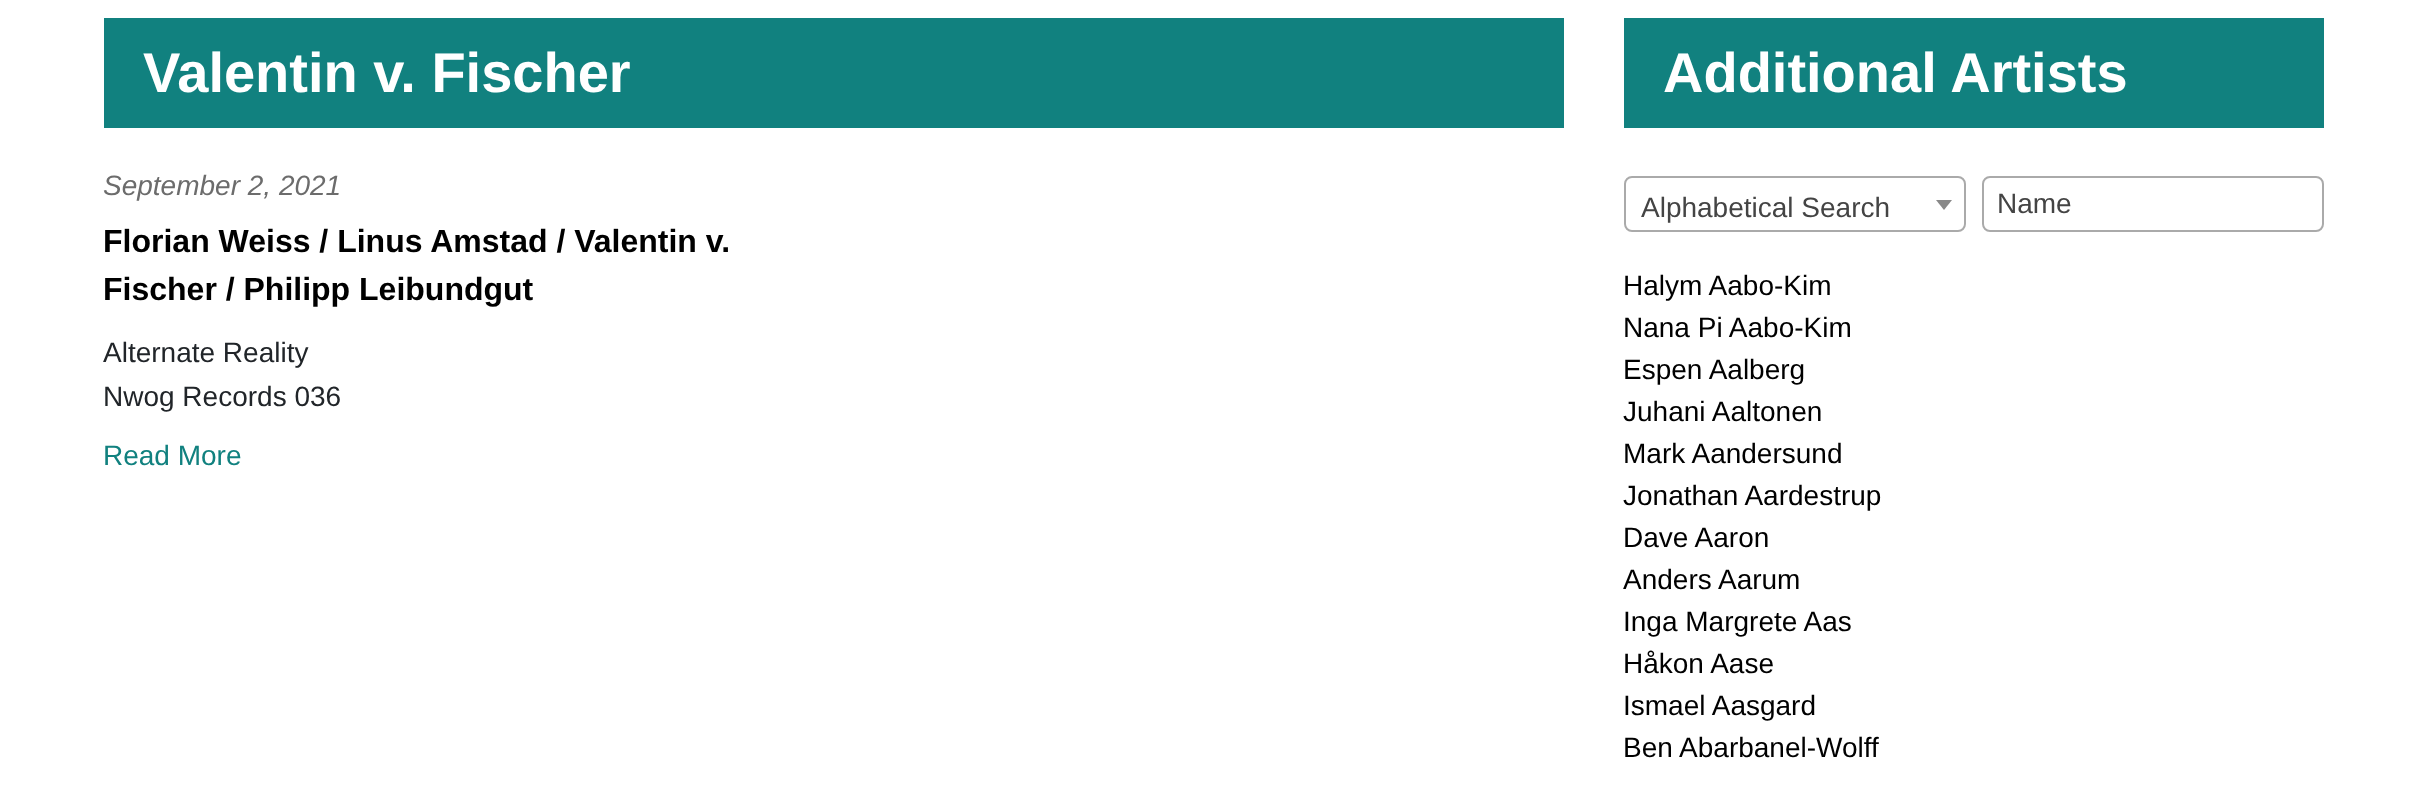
<svg xmlns="http://www.w3.org/2000/svg" width="2425" height="795" viewBox="0 0 2425 795">
  <rect width="100%" height="100%" fill="rgb(255,255,255)"/>
  <rect x="104" y="18" width="1460" height="110" fill="rgb(17,129,127)"/>
  <text x="143" y="92" font-family="Liberation Sans" font-size="56" font-weight="bold" fill="rgb(255,255,255)">Valentin v. Fischer</text>
  <text x="103" y="195" font-family="Liberation Sans" font-size="28" font-style="italic" fill="rgb(108,108,108)">September 2, 2021</text>
  <g font-family="Liberation Sans" font-size="32" font-weight="bold" fill="rgb(0,0,0)">
    <text>
      <tspan x="103" y="252">Florian Weiss / Linus Amstad / Valentin v.</tspan>
      <tspan x="103" y="300">Fischer / Philipp Leibundgut</tspan>
    </text>
  </g>
  <g font-family="Liberation Sans" font-size="28" fill="rgb(33,37,41)">
    <text>
      <tspan x="103" y="362">Alternate Reality</tspan>
      <tspan x="103" y="406">Nwog Records 036</tspan>
    </text>
  </g>
  <text x="103" y="465" font-family="Liberation Sans" font-size="28" fill="rgb(17,129,127)">Read More</text>
  <rect x="1624" y="18" width="700" height="110" fill="rgb(17,129,127)"/>
  <text x="1663" y="92" font-family="Liberation Sans" font-size="56" font-weight="bold" fill="rgb(255,255,255)">Additional Artists</text>
  <rect x="1625" y="177" width="340" height="54" rx="7" fill="none" stroke="rgb(170,170,170)" stroke-width="2"/>
  <text x="1641" y="217" font-family="Liberation Sans" font-size="28" fill="rgb(68,68,68)">Alphabetical Search</text>
  <path d="M1936 200H1952L1944 210Z" fill="rgb(136,136,136)"/>
  <rect x="1983" y="177" width="340" height="54" rx="7" fill="none" stroke="rgb(170,170,170)" stroke-width="2"/>
  <text x="1997" y="213" font-family="Liberation Sans" font-size="28" fill="rgb(68,68,68)">Name</text>
  <g font-family="Liberation Sans" font-size="28" fill="rgb(0,0,0)">
    <text>
      <tspan x="1623" y="295">Halym Aabo-Kim</tspan>
      <tspan x="1623" y="337">Nana Pi Aabo-Kim</tspan>
      <tspan x="1623" y="379">Espen Aalberg</tspan>
      <tspan x="1623" y="421">Juhani Aaltonen</tspan>
      <tspan x="1623" y="463">Mark Aandersund</tspan>
      <tspan x="1623" y="505">Jonathan Aardestrup</tspan>
      <tspan x="1623" y="547">Dave Aaron</tspan>
      <tspan x="1623" y="589">Anders Aarum</tspan>
      <tspan x="1623" y="631">Inga Margrete Aas</tspan>
      <tspan x="1623" y="673">Håkon Aase</tspan>
      <tspan x="1623" y="715">Ismael Aasgard</tspan>
      <tspan x="1623" y="757">Ben Abarbanel-Wolff</tspan>
    </text>
  </g>
</svg>
